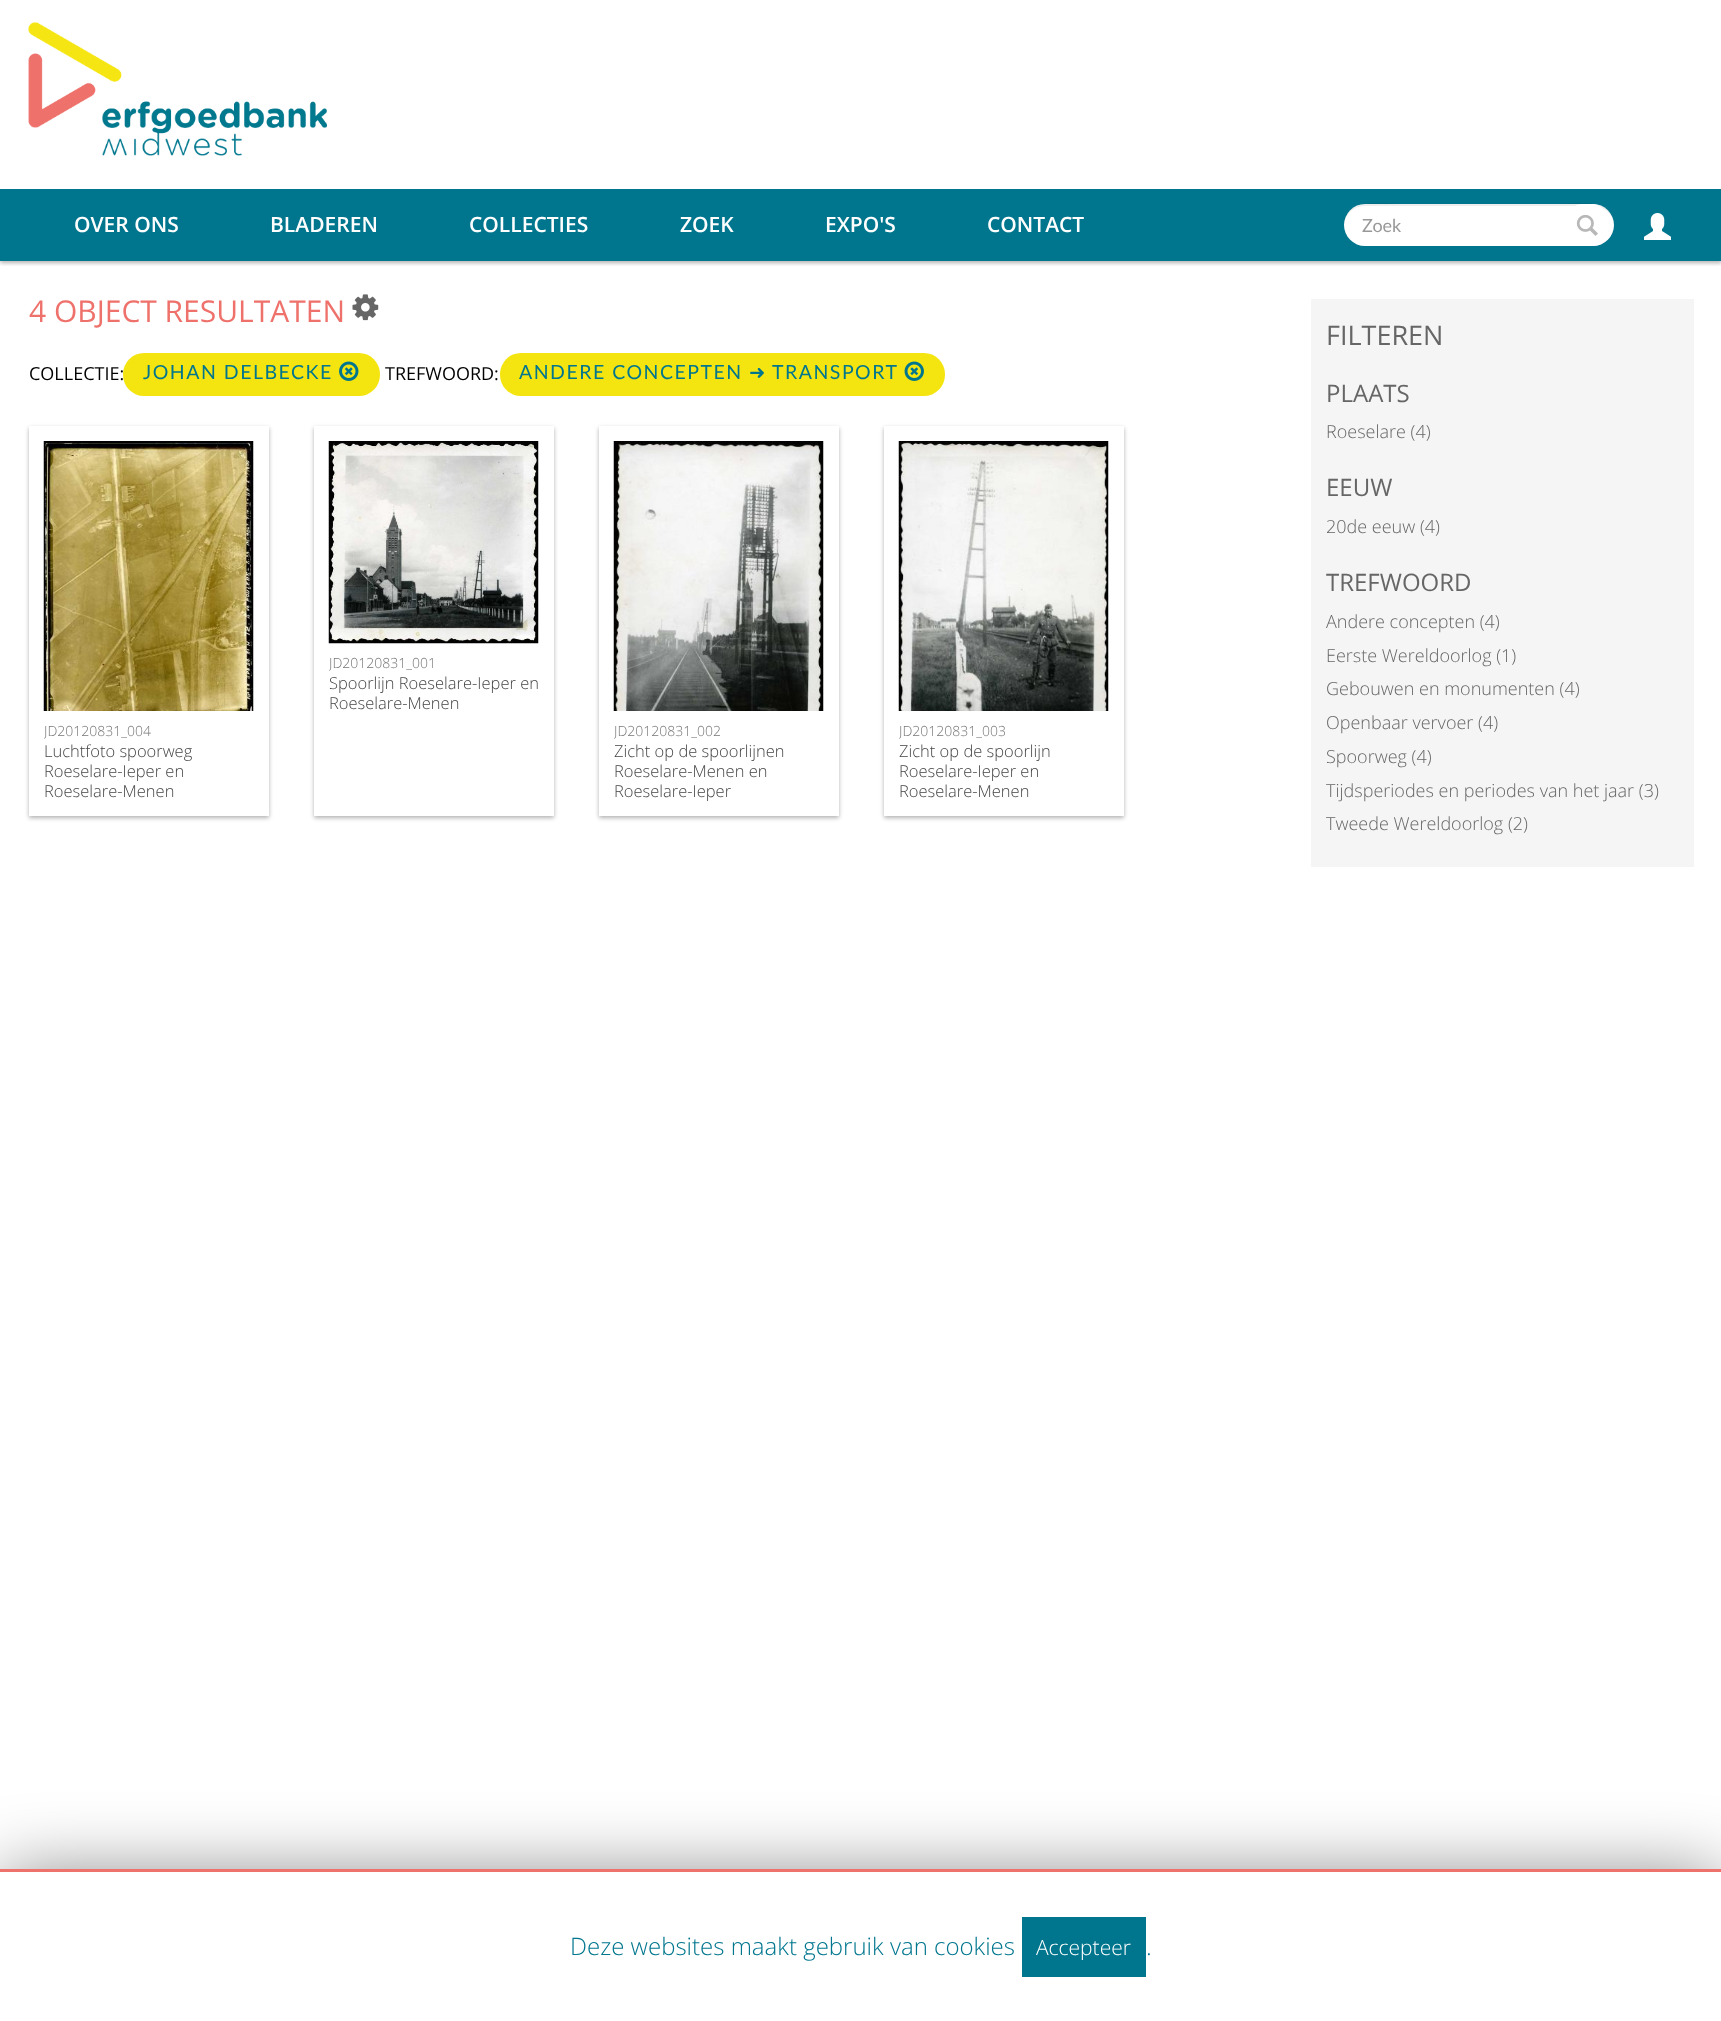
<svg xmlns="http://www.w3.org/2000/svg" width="1721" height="2021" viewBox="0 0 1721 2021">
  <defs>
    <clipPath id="clip1"><rect x="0" y="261" width="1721" height="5"/></clipPath>
    <clipPath id="clip2"><rect x="329" y="441" width="210" height="360"/></clipPath>
    <clipPath id="clip3"><rect x="44" y="441" width="210" height="360"/></clipPath>
    <clipPath id="clip4"><rect x="614" y="441" width="210" height="360"/></clipPath>
    <clipPath id="clip5"><rect x="899" y="441" width="210" height="360"/></clipPath>
  </defs>
  <rect width="100%" height="100%" fill="rgb(255,255,255)"/>
  <g clip-path="url(#clip1)">
    <rect x="0" y="2" width="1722" height="261" fill="rgba(0,0,0,0.3)" filter="blur(2px)"/>
  </g>
  <image x="28" y="22" width="299" height="134" href="pic1.png"/>
  <rect x="0" y="189" width="1721" height="72" fill="rgb(0,118,142)"/>
  <g font-family="Open Sans" font-size="21" font-weight="600" fill="rgb(255,255,255)">
    <text x="74" y="232">OVER ONS</text>
    <text x="270" y="232">BLADEREN</text>
    <text x="469" y="232">COLLECTIES</text>
    <text x="680" y="232">ZOEK</text>
    <text x="825" y="232">EXPO'S</text>
    <text x="987" y="232">CONTACT</text>
  </g>
  <rect x="1344" y="204" width="270" height="42" rx="21" fill="rgb(255,255,255)"/>
  <path d="M1365 206H1593C1605 206 1614 215 1614 226C1615 195 1570 204 1555 204H1403C1388 204 1343 195 1344 226C1344 215 1353 206 1365 206Z" fill="rgba(0,0,0,0.07)"/>
  <text x="1362" y="232" font-family="Lato" font-size="18" fill="rgb(153,153,153)">Zoek</text>
  <rect x="1568" y="204" width="39" height="42" rx="15" fill="rgb(255,255,255)"/>
  <image x="1576" y="215" width="22" height="21" href="pic2.png"/>
  <image x="1644" y="213" width="27" height="27" href="pic3.png"/>
  <text x="29" y="322" font-family="Open Sans" font-size="30" fill="rgb(238,114,107)">4 OBJECT RESULTATEN</text>
  <image x="352" y="294" width="27" height="27" href="pic4.png"/>
  <text x="29" y="380" font-family="Open Sans" font-size="18" fill="rgb(0,0,0)">COLLECTIE:</text>
  <rect x="123" y="353" width="257" height="43" rx="21" fill="rgb(244,229,17)"/>
  <text x="143" y="379" font-family="Lato" font-size="19.5" letter-spacing="1.5" fill="rgb(0,118,142)">JOHAN DELBECKE</text>
  <image x="339" y="361" width="20" height="20" href="pic5.png"/>
  <text x="385" y="380" font-family="Open Sans" font-size="18" fill="rgb(0,0,0)">TREFWOORD:</text>
  <rect x="500" y="353" width="445" height="43" rx="21" fill="rgb(244,229,17)"/>
  <text x="519" y="379" font-family="Lato" font-size="19.5" letter-spacing="1.5" fill="rgb(0,118,142)">ANDERE CONCEPTEN</text>
  <text x="749" y="379" font-family="DejaVu Sans" font-size="19.5" letter-spacing="1.5" fill="rgb(0,118,142)">➜</text>
  <text x="772" y="379" font-family="Lato" font-size="19.5" letter-spacing="1.5" fill="rgb(0,118,142)">TRANSPORT</text>
  <image x="904" y="361" width="20" height="20" href="pic6.png"/>
  <rect x="314" y="428" width="240" height="390" fill="rgba(0,0,0,0.3)" filter="blur(2px)"/>
  <rect x="314" y="426" width="240" height="390" fill="rgb(255,255,255)"/>
  <image x="328" y="441" width="211" height="203" href="pic7.png"/>
  <g clip-path="url(#clip2)">
    <text x="329" y="668" font-family="Open Sans" font-size="14" font-weight="300" fill="rgb(117,117,117)">JD20120831_001</text>
  </g>
  <g font-family="Open Sans" font-size="16.5" font-weight="300" fill="rgb(69,69,69)">
    <text>
      <tspan x="329" y="689">Spoorlijn Roeselare-Ieper en</tspan>
      <tspan x="329" y="709">Roeselare-Menen</tspan>
    </text>
  </g>
  <rect x="29" y="428" width="240" height="390" fill="rgba(0,0,0,0.3)" filter="blur(2px)"/>
  <rect x="29" y="426" width="240" height="390" fill="rgb(255,255,255)"/>
  <image x="43" y="441" width="211" height="270" href="pic8.png"/>
  <g clip-path="url(#clip3)">
    <text x="44" y="736" font-family="Open Sans" font-size="14" font-weight="300" fill="rgb(117,117,117)">JD20120831_004</text>
  </g>
  <g font-family="Open Sans" font-size="16.5" font-weight="300" fill="rgb(69,69,69)">
    <text>
      <tspan x="44" y="757">Luchtfoto spoorweg</tspan>
      <tspan x="44" y="777">Roeselare-Ieper en</tspan>
      <tspan x="44" y="797">Roeselare-Menen</tspan>
    </text>
  </g>
  <rect x="599" y="428" width="240" height="390" fill="rgba(0,0,0,0.3)" filter="blur(2px)"/>
  <rect x="599" y="426" width="240" height="390" fill="rgb(255,255,255)"/>
  <image x="613" y="441" width="211" height="270" href="pic9.png"/>
  <g clip-path="url(#clip4)">
    <text x="614" y="736" font-family="Open Sans" font-size="14" font-weight="300" fill="rgb(117,117,117)">JD20120831_002</text>
  </g>
  <g font-family="Open Sans" font-size="16.5" font-weight="300" fill="rgb(69,69,69)">
    <text>
      <tspan x="614" y="757">Zicht op de spoorlijnen</tspan>
      <tspan x="614" y="777">Roeselare-Menen en</tspan>
      <tspan x="614" y="797">Roeselare-Ieper</tspan>
    </text>
  </g>
  <rect x="884" y="428" width="240" height="390" fill="rgba(0,0,0,0.3)" filter="blur(2px)"/>
  <rect x="884" y="426" width="240" height="390" fill="rgb(255,255,255)"/>
  <image x="898" y="441" width="211" height="270" href="pic10.png"/>
  <g clip-path="url(#clip5)">
    <text x="899" y="736" font-family="Open Sans" font-size="14" font-weight="300" fill="rgb(117,117,117)">JD20120831_003</text>
  </g>
  <g font-family="Open Sans" font-size="16.5" font-weight="300" fill="rgb(69,69,69)">
    <text>
      <tspan x="899" y="757">Zicht op de spoorlijn</tspan>
      <tspan x="899" y="777">Roeselare-Ieper en</tspan>
      <tspan x="899" y="797">Roeselare-Menen</tspan>
    </text>
  </g>
  <rect x="1311" y="299" width="383" height="568" fill="rgb(245,245,245)"/>
  <text x="1326" y="345" font-family="Open Sans" font-size="27" fill="rgb(102,102,102)">FILTEREN</text>
  <text x="1326" y="402" font-family="Open Sans" font-size="24" fill="rgb(102,102,102)">PLAATS</text>
  <text x="1326" y="438" font-family="Open Sans" font-size="18" font-weight="300" fill="rgb(102,102,102)">Roeselare (4)</text>
  <text x="1326" y="496" font-family="Open Sans" font-size="24" fill="rgb(102,102,102)">EEUW</text>
  <text x="1326" y="533" font-family="Open Sans" font-size="18" font-weight="300" fill="rgb(102,102,102)">20de eeuw (4)</text>
  <text x="1326" y="591" font-family="Open Sans" font-size="24" fill="rgb(102,102,102)">TREFWOORD</text>
  <g font-family="Open Sans" font-size="18" font-weight="300" fill="rgb(102,102,102)">
    <text>
      <tspan x="1326" y="628">Andere concepten (4)</tspan>
      <tspan x="1326" y="662">Eerste Wereldoorlog (1)</tspan>
      <tspan x="1326" y="695">Gebouwen en monumenten (4)</tspan>
      <tspan x="1326" y="729">Openbaar vervoer (4)</tspan>
      <tspan x="1326" y="763">Spoorweg (4)</tspan>
      <tspan x="1326" y="797">Tijdsperiodes en periodes van het jaar (3)</tspan>
      <tspan x="1326" y="830">Tweede Wereldoorlog (2)</tspan>
    </text>
  </g>
  <rect x="0" y="1877" width="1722" height="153" fill="rgba(0,0,0,0.5)" filter="blur(37.5px)"/>
  <rect x="0" y="1872" width="1721" height="149" fill="rgb(255,255,255)"/>
  <rect x="0" y="1869" width="1721" height="3" fill="rgb(238,114,107)"/>
  <text x="570" y="1955" font-family="Open Sans" font-size="24" font-weight="300" fill="rgb(0,118,142)">Deze websites maakt gebruik van cookies</text>
  <rect x="1022" y="1917" width="124" height="60" fill="rgb(0,118,142)"/>
  <text x="1036" y="1955" font-family="Open Sans" font-size="21" font-weight="300" fill="rgb(255,255,255)">Accepteer</text>
  <text x="1146" y="1955" font-family="Open Sans" font-size="24" font-weight="300" fill="rgb(0,118,142)">.</text>
</svg>
